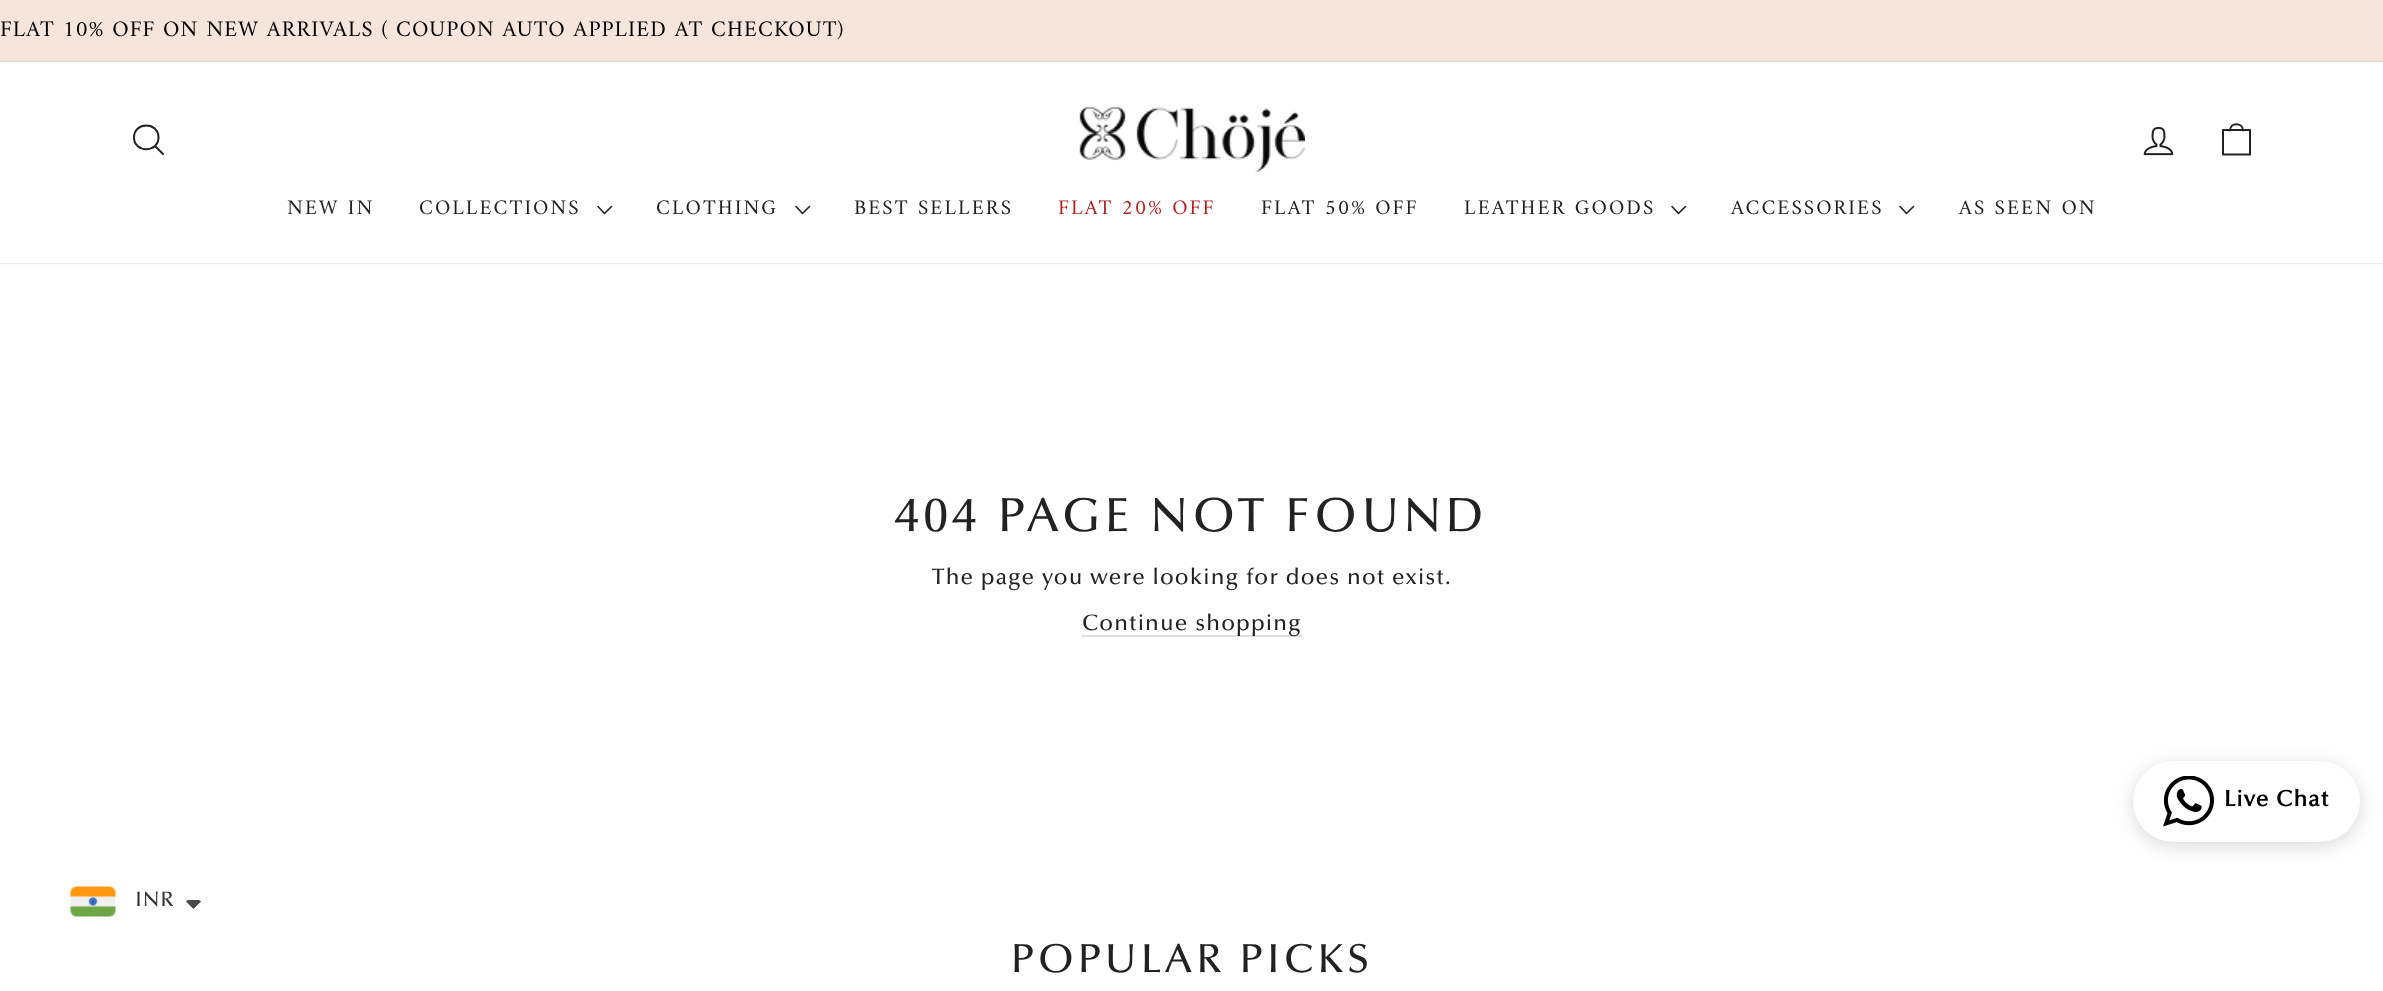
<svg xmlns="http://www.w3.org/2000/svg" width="2383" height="991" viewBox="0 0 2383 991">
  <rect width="100%" height="100%" fill="rgb(255,255,255)"/>
  <rect x="0" y="0" width="2383" height="62" fill="rgb(246,229,219)"/>
  <text x="0" y="36" font-family="amiri" font-size="22.5" letter-spacing="1.12" fill="rgb(0,0,0)">FLAT 10% OFF ON NEW ARRIVALS ( COUPON AUTO APPLIED AT CHECKOUT)</text>
  <rect x="0" y="62" width="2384" height="201" fill="rgba(0,0,0,0.2)" filter="blur(1px)"/>
  <rect x="0" y="62" width="2383" height="201" fill="rgb(255,255,255)"/>
  <path d="M158.5 137.5C158.5 153 134 153 134 137.5C134 121.5 158.5 121.5 158.5 137.5ZM163 154L155 146" fill="none" stroke="rgb(34,34,34)" stroke-width="2" stroke-linecap="round" stroke-linejoin="round"/>
  <image x="1079" y="107" width="226" height="65" href="pic1.png"/>
  <image x="2143" y="126" width="31" height="30" href="pic2.png"/>
  <path d="M2223 130H2250V154.5H2223ZM2230 130.5C2230 122 2243 122 2243 130.5" fill="none" stroke="rgb(34,34,34)" stroke-width="2" stroke-linecap="round" stroke-linejoin="round"/>
  <g font-family="amiri" font-size="21" letter-spacing="2.1" fill="rgb(34,34,34)">
    <text x="287" y="214">NEW IN</text>
    <text x="419" y="214">COLLECTIONS</text>
  </g>
  <path d="M598 206.5L604.5 213.5L611.5 206.5" fill="none" stroke="rgb(34,34,34)" stroke-width="1.6" stroke-linecap="round" stroke-linejoin="round"/>
  <text x="656" y="214" font-family="amiri" font-size="21" letter-spacing="2.1" fill="rgb(34,34,34)">CLOTHING</text>
  <path d="M796 206.5L802.5 213.5L809.5 206.5" fill="none" stroke="rgb(34,34,34)" stroke-width="1.6" stroke-linecap="round" stroke-linejoin="round"/>
  <text x="854" y="214" font-family="amiri" font-size="21" letter-spacing="2.1" fill="rgb(34,34,34)">BEST SELLERS</text>
  <text x="1058" y="214" font-family="amiri" font-size="21" letter-spacing="2.1" fill="rgb(178,34,34)">FLAT 20% OFF</text>
  <g font-family="amiri" font-size="21" letter-spacing="2.1" fill="rgb(34,34,34)">
    <text x="1261" y="214">FLAT 50% OFF</text>
    <text x="1464" y="214">LEATHER GOODS</text>
  </g>
  <path d="M1672 206.5L1678.5 213.5L1685.5 206.5" fill="none" stroke="rgb(34,34,34)" stroke-width="1.6" stroke-linecap="round" stroke-linejoin="round"/>
  <text x="1731" y="214" font-family="amiri" font-size="21" letter-spacing="2.1" fill="rgb(34,34,34)">ACCESSORIES</text>
  <path d="M1900 206.5L1906.5 213.5L1913.5 206.5" fill="none" stroke="rgb(34,34,34)" stroke-width="1.6" stroke-linecap="round" stroke-linejoin="round"/>
  <text x="1959" y="214" font-family="amiri" font-size="21" letter-spacing="2.1" fill="rgb(34,34,34)">AS SEEN ON</text>
  <text x="895" y="531" font-family="Optima" font-size="48" font-weight="500" letter-spacing="4.75" fill="rgb(34,34,34)">404 PAGE NOT FOUND</text>
  <text x="932" y="584" font-family="Optima" font-size="22.5" font-weight="500" letter-spacing="1.12" fill="rgb(34,34,34)">The page you were looking for does not exist.</text>
  <rect x="1082" y="635" width="220" height="2" fill="rgb(222,222,222)"/>
  <text x="1082" y="630" font-family="Optima" font-size="22.5" font-weight="500" letter-spacing="1.12" fill="rgb(34,34,34)">Continue shopping</text>
  <text x="1011" y="972" font-family="Optima" font-size="40.75" font-weight="500" letter-spacing="4.1" fill="rgb(34,34,34)">POPULAR PICKS</text>
  <rect x="2133" y="765" width="227" height="81" rx="40.5" fill="rgba(0,0,0,0.15)" filter="blur(9px)"/>
  <rect x="2133" y="761" width="227" height="81" rx="40.5" fill="rgb(255,255,255)"/>
  <image x="2163" y="776" width="51" height="51" href="pic3.png"/>
  <text x="2224" y="806" font-family="Optima" font-size="22.5" font-weight="bold" letter-spacing="1.12" fill="rgb(0,0,0)">Live Chat</text>
  <image x="70" y="886" width="46" height="31" href="pic4.png"/>
  <text x="135" y="906" font-family="Optima" font-size="21" font-weight="500" letter-spacing="1.12" fill="rgb(51,51,51)">INR</text>
  <path d="M189 900C188 900 186.5 900.5 186 901.5L193.5 909L201 901.5C200.5 900.5 199 900 198 900Z" fill="rgb(71,73,66)"/>
</svg>
